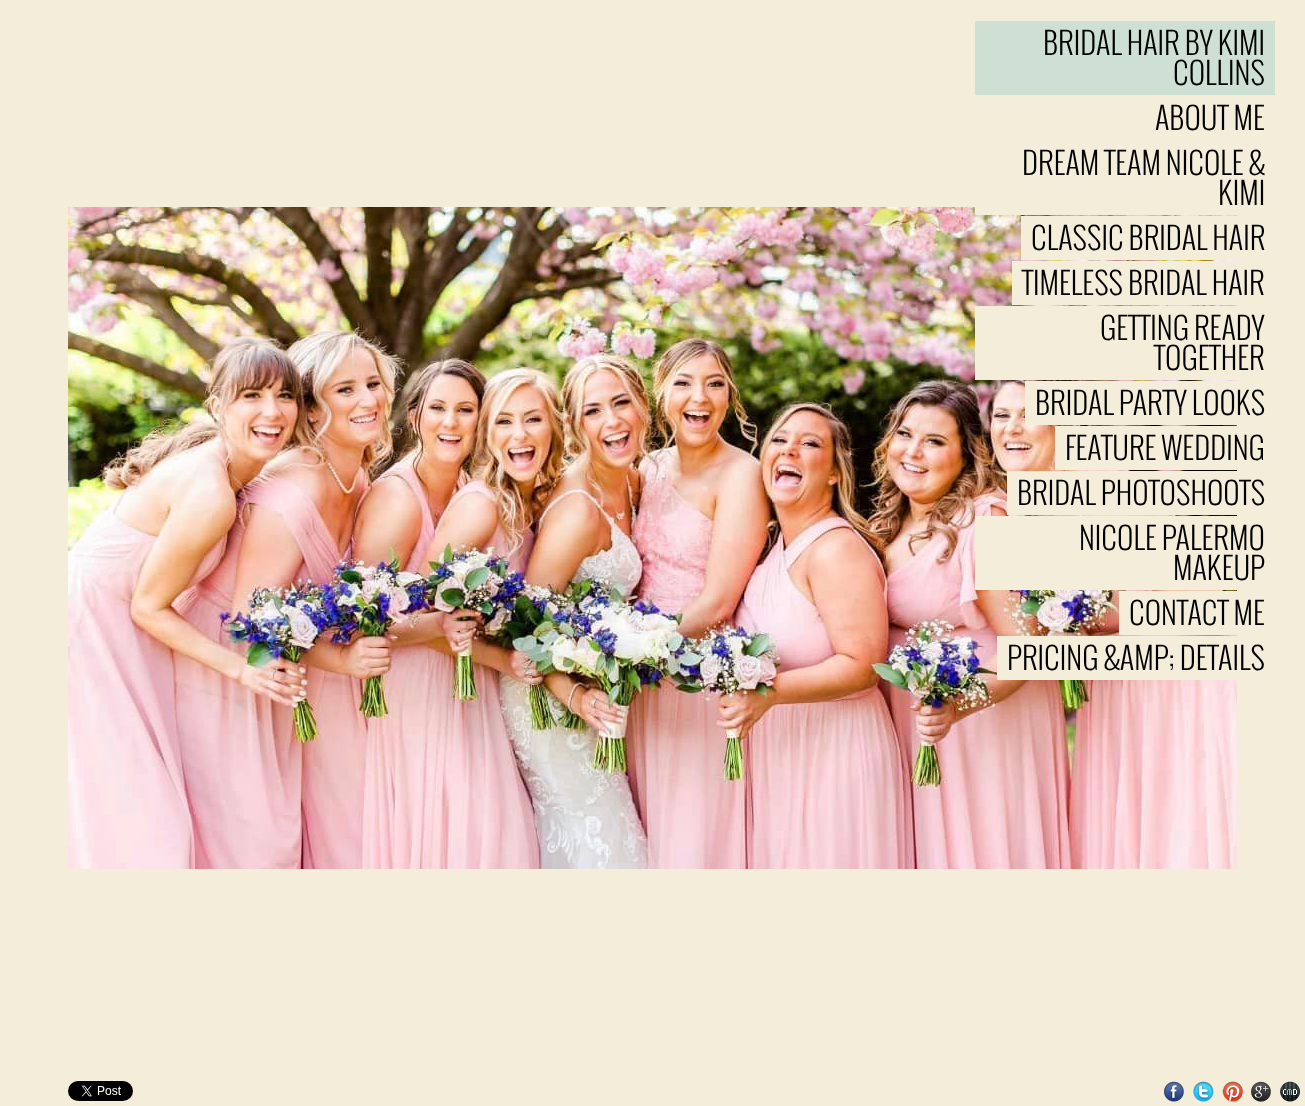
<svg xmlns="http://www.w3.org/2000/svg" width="1305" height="1106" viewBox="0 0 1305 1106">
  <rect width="100%" height="100%" fill="rgb(244,237,218)"/>
  <rect x="975" y="21" width="300" height="74" fill="rgb(206,224,212)"/>
  <g font-family="Oswald" font-size="30" font-weight="300" fill="rgb(0,0,0)">
    <text x="1043" y="55">BRIDAL HAIR BY KIMI</text>
    <text x="1173" y="85">COLLINS</text>
    <text x="1155" y="130">ABOUT ME</text>
  </g>
  <image x="68" y="207" width="1169" height="662" href="pic1.png"/>
  <rect x="975" y="207" width="262" height="8" fill="rgb(244,237,218)"/>
  <g font-family="Oswald" font-size="30" font-weight="300" fill="rgb(0,0,0)">
    <text x="1022" y="175">DREAM TEAM NICOLE &amp;</text>
    <text x="1218" y="205">KIMI</text>
  </g>
  <rect x="1021" y="216" width="216" height="44" fill="rgb(244,237,218)"/>
  <text x="1031" y="250" font-family="Oswald" font-size="30" font-weight="300" fill="rgb(0,0,0)">CLASSIC BRIDAL HAIR</text>
  <rect x="1012" y="261" width="225" height="44" fill="rgb(244,237,218)"/>
  <text x="1022" y="295" font-family="Oswald" font-size="30" font-weight="300" fill="rgb(0,0,0)">TIMELESS BRIDAL HAIR</text>
  <rect x="975" y="306" width="262" height="74" fill="rgb(244,237,218)"/>
  <g font-family="Oswald" font-size="30" font-weight="300" fill="rgb(0,0,0)">
    <text x="1100" y="340">GETTING READY</text>
    <text x="1154" y="370">TOGETHER</text>
  </g>
  <rect x="1025" y="381" width="212" height="44" fill="rgb(244,237,218)"/>
  <text x="1035" y="415" font-family="Oswald" font-size="30" font-weight="300" fill="rgb(0,0,0)">BRIDAL PARTY LOOKS</text>
  <rect x="1055" y="426" width="182" height="44" fill="rgb(244,237,218)"/>
  <text x="1065" y="460" font-family="Oswald" font-size="30" font-weight="300" fill="rgb(0,0,0)">FEATURE WEDDING</text>
  <rect x="1007" y="471" width="230" height="44" fill="rgb(244,237,218)"/>
  <text x="1017" y="505" font-family="Oswald" font-size="30" font-weight="300" fill="rgb(0,0,0)">BRIDAL PHOTOSHOOTS</text>
  <rect x="975" y="516" width="262" height="74" fill="rgb(244,237,218)"/>
  <g font-family="Oswald" font-size="30" font-weight="300" fill="rgb(0,0,0)">
    <text x="1079" y="550">NICOLE PALERMO</text>
    <text x="1173" y="580">MAKEUP</text>
  </g>
  <rect x="1119" y="591" width="118" height="44" fill="rgb(244,237,218)"/>
  <text x="1129" y="625" font-family="Oswald" font-size="30" font-weight="300" fill="rgb(0,0,0)">CONTACT ME</text>
  <rect x="997" y="636" width="240" height="44" fill="rgb(244,237,218)"/>
  <text x="1007" y="670" font-family="Oswald" font-size="30" font-weight="300" fill="rgb(0,0,0)">PRICING &amp;AMP; DETAILS</text>
  <image x="68" y="1081" width="65" height="20" href="pic2.png"/>
  <image x="1164" y="1081" width="20" height="21" href="pic3.png"/>
  <image x="1193" y="1081" width="21" height="21" href="pic4.png"/>
  <image x="1222" y="1081" width="21" height="21" href="pic5.png"/>
  <image x="1251" y="1081" width="20" height="21" href="pic6.png"/>
  <image x="1280" y="1081" width="20" height="21" href="pic7.png"/>
</svg>
